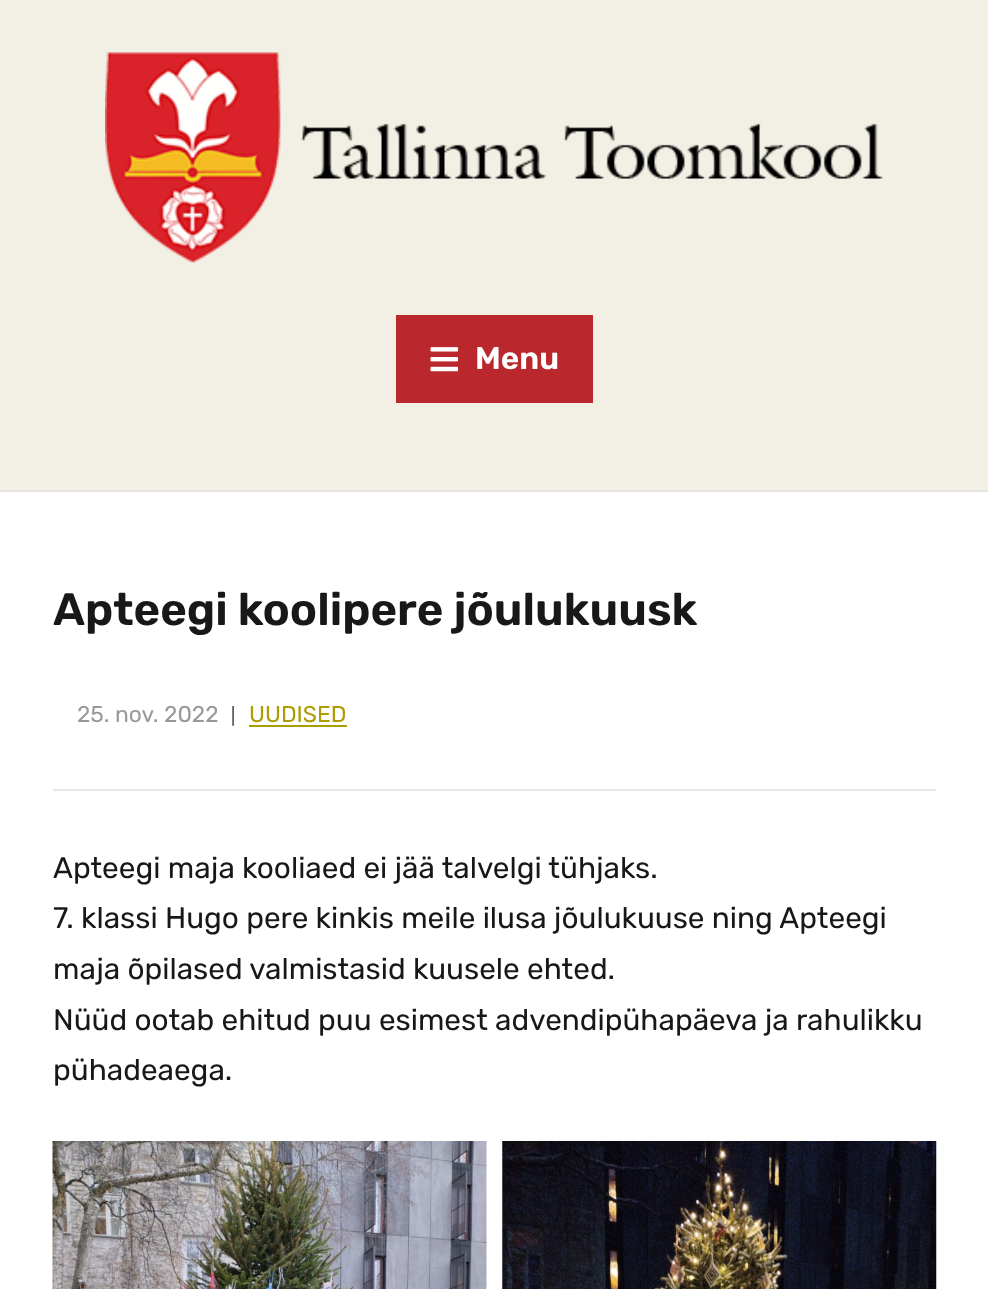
<svg xmlns="http://www.w3.org/2000/svg" width="988" height="1289" viewBox="0 0 988 1289">
  <rect width="100%" height="100%" fill="rgb(255,255,255)"/>
  <rect x="0" y="0" width="988" height="490" fill="rgb(242,240,228)"/>
  <rect x="0" y="490" width="988" height="2" fill="rgb(231,227,224)"/>
  <image x="105" y="52" width="778" height="211" href="pic1.png"/>
  <rect x="396" y="315" width="197" height="88" fill="rgb(186,39,45)"/>
  <image x="430" y="347" width="29" height="25" href="pic2.png"/>
  <text x="475" y="369" font-family="Rubik" font-size="31.5" font-weight="600" fill="rgb(255,255,255)">Menu</text>
  <rect x="53" y="789" width="883" height="2" fill="rgb(230,230,230)"/>
  <text x="53" y="625" font-family="Rubik" font-size="45.5" font-weight="600" fill="rgb(24,24,24)">Apteegi koolipere jõulukuusk</text>
  <text x="77" y="722" font-family="Rubik" font-size="22.75" fill="rgb(153,153,153)">25. nov. 2022</text>
  <text x="231" y="722" font-family="Rubik" font-size="18" fill="rgb(72,72,72)">|</text>
  <text x="249" y="722" font-family="Rubik" font-size="22.75" fill="rgb(173,156,0)">UUDISED</text>
  <rect x="249" y="725" width="98" height="2" fill="rgb(173,156,0)"/>
  <g font-family="Rubik" font-size="29.75" fill="rgb(24,24,24)">
    <text>
      <tspan x="53" y="878">Apteegi maja kooliaed ei jää talvelgi tühjaks.</tspan>
      <tspan x="53" y="928">7. klassi Hugo pere kinkis meile ilusa jõulukuuse ning Apteegi</tspan>
      <tspan x="53" y="979">maja õpilased valmistasid kuusele ehted.</tspan>
      <tspan x="53" y="1030">Nüüd ootab ehitud puu esimest advendipühapäeva ja rahulikku</tspan>
      <tspan x="53" y="1080">pühadeaega.</tspan>
    </text>
  </g>
  <image x="52" y="1141" width="435" height="148" href="pic3.png"/>
  <image x="502" y="1141" width="435" height="148" href="pic4.png"/>
</svg>
